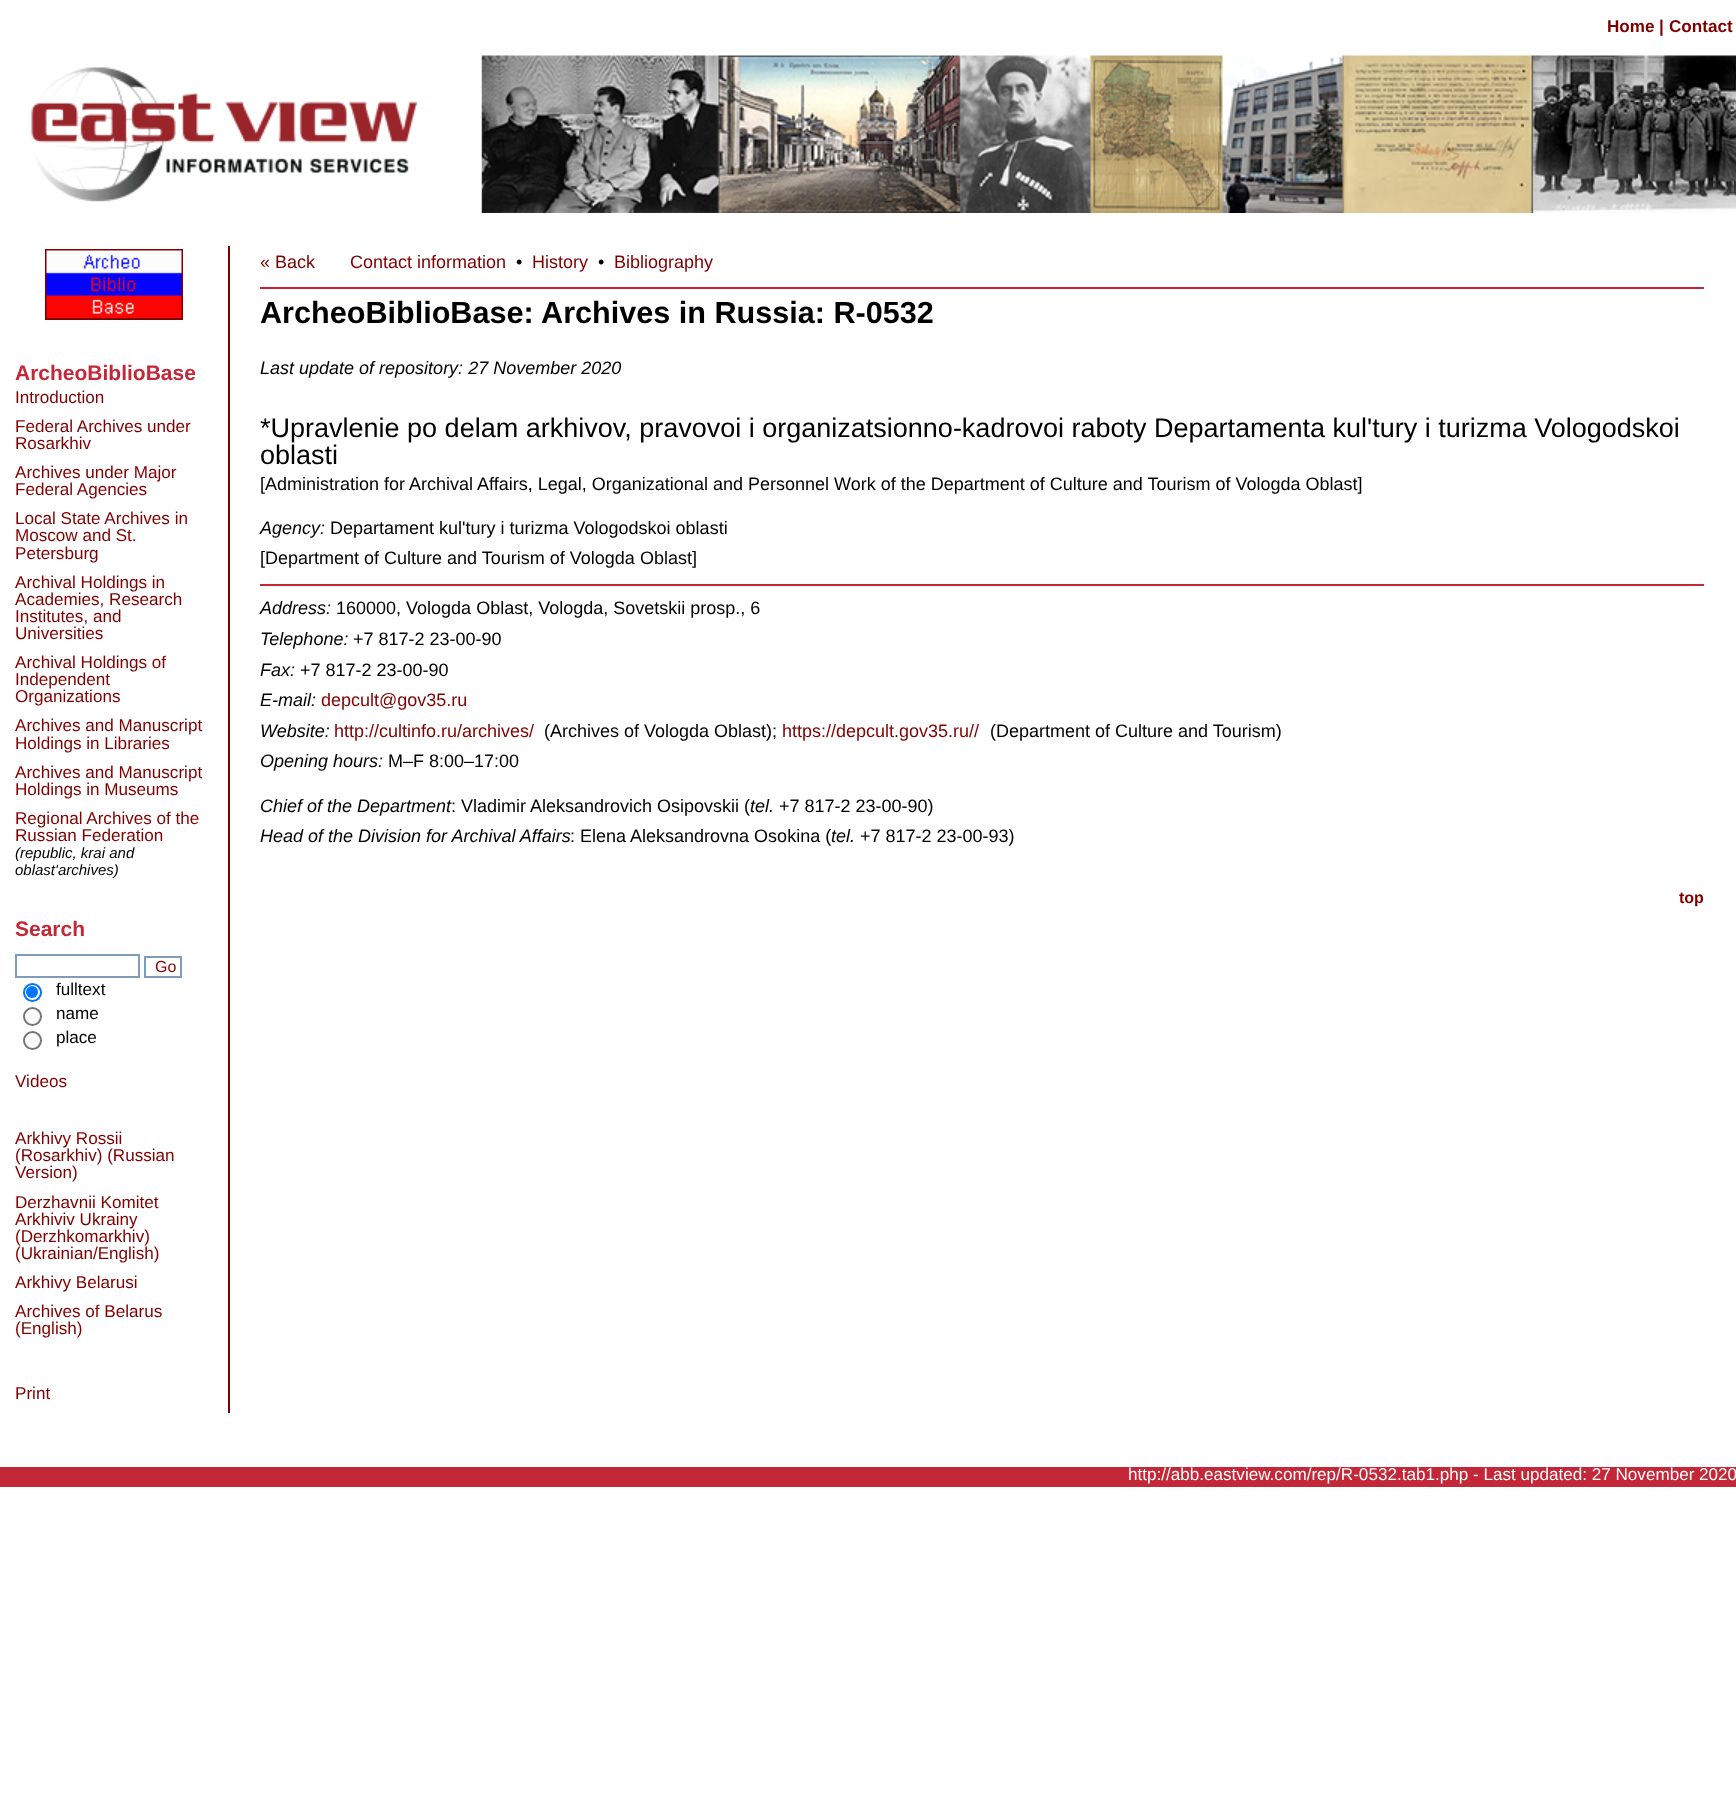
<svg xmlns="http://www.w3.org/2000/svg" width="1736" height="1818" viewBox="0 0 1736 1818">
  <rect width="100%" height="100%" fill="rgb(255,255,255)"/>
  <text x="1607" y="32" font-family="Liberation Sans" font-size="17.1" font-weight="bold" fill="rgb(128,0,0)">Home</text>
  <text x="1659" y="32" font-family="Liberation Sans" font-size="17.1" font-weight="bold" fill="rgb(136,0,0)">|</text>
  <text x="1669" y="32" font-family="Liberation Sans" font-size="17.1" font-weight="bold" fill="rgb(128,0,0)">Contact</text>
  <image x="481" y="55" width="1255" height="158" href="pic1.png"/>
  <image x="31" y="55" width="451" height="158" href="pic2.png"/>
  <rect x="46" y="250" width="136" height="69" fill="none" stroke="rgb(128,0,0)" stroke-width="2"/>
  <image x="46" y="250" width="136" height="68" href="pic3.png"/>
  <text x="15" y="380" font-family="Liberation Sans" font-size="21" font-weight="bold" fill="rgb(196,39,55)">ArcheoBiblioBase</text>
  <g font-family="Liberation Sans" font-size="17.1" fill="rgb(128,0,0)">
    <text>
      <tspan x="15" y="403">Introduction</tspan>
      <tspan x="15" y="432">Federal Archives under</tspan>
      <tspan x="15" y="449">Rosarkhiv</tspan>
      <tspan x="15" y="478">Archives under Major</tspan>
      <tspan x="15" y="495">Federal Agencies</tspan>
      <tspan x="15" y="524">Local State Archives in</tspan>
      <tspan x="15" y="541">Moscow and St.</tspan>
      <tspan x="15" y="559">Petersburg</tspan>
      <tspan x="15" y="588">Archival Holdings in</tspan>
      <tspan x="15" y="605">Academies, Research</tspan>
      <tspan x="15" y="622">Institutes, and</tspan>
      <tspan x="15" y="639">Universities</tspan>
      <tspan x="15" y="668">Archival Holdings of</tspan>
      <tspan x="15" y="685">Independent</tspan>
      <tspan x="15" y="702">Organizations</tspan>
      <tspan x="15" y="731">Archives and Manuscript</tspan>
      <tspan x="15" y="749">Holdings in Libraries</tspan>
      <tspan x="15" y="778">Archives and Manuscript</tspan>
      <tspan x="15" y="795">Holdings in Museums</tspan>
      <tspan x="15" y="824">Regional Archives of the</tspan>
      <tspan x="15" y="841">Russian Federation</tspan>
    </text>
  </g>
  <g font-family="Liberation Sans" font-size="15" font-style="italic" fill="rgb(0,0,0)">
    <text>
      <tspan x="15" y="858">(republic, krai and</tspan>
      <tspan x="15" y="875">oblast'archives)</tspan>
    </text>
  </g>
  <text x="15" y="936" font-family="Liberation Sans" font-size="21" font-weight="bold" fill="rgb(196,39,55)">Search</text>
  <rect x="16" y="955" width="123" height="22" fill="none" stroke="rgb(127,157,185)" stroke-width="2"/>
  <rect x="145" y="957" width="36" height="20" fill="none" stroke="rgb(127,157,185)" stroke-width="2"/>
  <text x="155" y="972" font-family="Liberation Sans" font-size="16" fill="rgb(136,0,0)">Go</text>
  <circle cx="32.5" cy="992.5" r="8.5" fill="none" stroke="rgb(0,117,255)" stroke-width="2"/>
  <circle cx="32" cy="992" r="6" fill="rgb(0,117,255)"/>
  <text x="56" y="995" font-family="Liberation Sans" font-size="17.1" fill="rgb(0,0,0)">fulltext</text>
  <circle cx="32.5" cy="1016.5" r="8.5" fill="none" stroke="rgb(118,118,118)" stroke-width="2"/>
  <text x="56" y="1019" font-family="Liberation Sans" font-size="17.1" fill="rgb(0,0,0)">name</text>
  <circle cx="32.5" cy="1040.5" r="8.5" fill="none" stroke="rgb(118,118,118)" stroke-width="2"/>
  <text x="56" y="1043" font-family="Liberation Sans" font-size="17.1" fill="rgb(0,0,0)">place</text>
  <g font-family="Liberation Sans" font-size="17.1" fill="rgb(128,0,0)">
    <text x="15" y="1087">Videos</text>
    <text>
      <tspan x="15" y="1144">Arkhivy Rossii</tspan>
      <tspan x="15" y="1161">(Rosarkhiv) (Russian</tspan>
      <tspan x="15" y="1178">Version)</tspan>
      <tspan x="15" y="1208">Derzhavnii Komitet</tspan>
      <tspan x="15" y="1225">Arkhiviv Ukrainy</tspan>
      <tspan x="15" y="1242">(Derzhkomarkhiv)</tspan>
      <tspan x="15" y="1259">(Ukrainian/English)</tspan>
      <tspan x="15" y="1288">Arkhivy Belarusi</tspan>
      <tspan x="15" y="1317">Archives of Belarus</tspan>
      <tspan x="15" y="1334">(English)</tspan>
    </text>
    <text x="15" y="1399">Print</text>
  </g>
  <rect x="228" y="246" width="2" height="1167" fill="rgb(128,0,0)"/>
  <g font-family="Liberation Sans" font-size="18" fill="rgb(128,0,0)">
    <text x="260" y="268">« Back</text>
    <text x="350" y="268">Contact information</text>
  </g>
  <text x="516" y="268" font-family="Liberation Sans" font-size="18" fill="rgb(0,0,0)">•</text>
  <text x="532" y="268" font-family="Liberation Sans" font-size="18" fill="rgb(128,0,0)">History</text>
  <text x="598" y="268" font-family="Liberation Sans" font-size="18" fill="rgb(0,0,0)">•</text>
  <text x="614" y="268" font-family="Liberation Sans" font-size="18" fill="rgb(128,0,0)">Bibliography</text>
  <rect x="260" y="287" width="1444" height="2" fill="rgb(196,39,55)"/>
  <text x="260" y="323" font-family="Liberation Sans" font-size="30.6" font-weight="bold" fill="rgb(0,0,0)">ArcheoBiblioBase: Archives in Russia: R-0532</text>
  <text x="260" y="374" font-family="Liberation Sans" font-size="18" font-style="italic" fill="rgb(0,0,0)">Last update of repository: 27 November 2020</text>
  <g font-family="Liberation Sans" font-size="27" fill="rgb(0,0,0)">
    <text>
      <tspan x="260" y="437">*Upravlenie po delam arkhivov, pravovoi i organizatsionno-kadrovoi raboty Departamenta kul'tury i turizma Vologodskoi</tspan>
      <tspan x="260" y="464">oblasti</tspan>
    </text>
  </g>
  <text x="260" y="490" font-family="Liberation Sans" font-size="18" fill="rgb(0,0,0)">[Administration for Archival Affairs, Legal, Organizational and Personnel Work of the Department of Culture and Tourism of Vologda Oblast]</text>
  <text x="260" y="534" font-family="Liberation Sans" font-size="18" font-style="italic" fill="rgb(0,0,0)">Agency:</text>
  <g font-family="Liberation Sans" font-size="18" fill="rgb(0,0,0)">
    <text x="330" y="534">Departament kul'tury i turizma Vologodskoi oblasti</text>
    <text x="260" y="564">[Department of Culture and Tourism of Vologda Oblast]</text>
  </g>
  <rect x="260" y="584" width="1444" height="2" fill="rgb(196,39,55)"/>
  <text x="260" y="614" font-family="Liberation Sans" font-size="18" font-style="italic" fill="rgb(0,0,0)">Address:</text>
  <text x="336" y="614" font-family="Liberation Sans" font-size="18" fill="rgb(0,0,0)">160000, Vologda Oblast, Vologda, Sovetskii prosp., 6</text>
  <text x="260" y="645" font-family="Liberation Sans" font-size="18" font-style="italic" fill="rgb(0,0,0)">Telephone:</text>
  <text x="353" y="645" font-family="Liberation Sans" font-size="18" fill="rgb(0,0,0)">+7 817-2 23-00-90</text>
  <text x="260" y="676" font-family="Liberation Sans" font-size="18" font-style="italic" fill="rgb(0,0,0)">Fax:</text>
  <text x="300" y="676" font-family="Liberation Sans" font-size="18" fill="rgb(0,0,0)">+7 817-2 23-00-90</text>
  <text x="260" y="706" font-family="Liberation Sans" font-size="18" font-style="italic" fill="rgb(0,0,0)">E-mail:</text>
  <text x="321" y="706" font-family="Liberation Sans" font-size="18" fill="rgb(128,0,0)">depcult@gov35.ru</text>
  <text x="260" y="737" font-family="Liberation Sans" font-size="18" font-style="italic" fill="rgb(0,0,0)">Website:</text>
  <text x="334" y="737" font-family="Liberation Sans" font-size="18" fill="rgb(128,0,0)">http://cultinfo.ru/archives/</text>
  <text x="544" y="737" font-family="Liberation Sans" font-size="18" fill="rgb(0,0,0)">(Archives of Vologda Oblast);</text>
  <text x="782" y="737" font-family="Liberation Sans" font-size="18" fill="rgb(128,0,0)">https://depcult.gov35.ru//</text>
  <text x="990" y="737" font-family="Liberation Sans" font-size="18" fill="rgb(0,0,0)">(Department of Culture and Tourism)</text>
  <text x="260" y="767" font-family="Liberation Sans" font-size="18" font-style="italic" fill="rgb(0,0,0)">Opening hours:</text>
  <text x="388" y="767" font-family="Liberation Sans" font-size="18" fill="rgb(0,0,0)">M–F 8:00–17:00</text>
  <text x="260" y="812" font-family="Liberation Sans" font-size="18" font-style="italic" fill="rgb(0,0,0)">Chief of the Department</text>
  <text x="451" y="812" font-family="Liberation Sans" font-size="18" fill="rgb(0,0,0)">: Vladimir Aleksandrovich Osipovskii (</text>
  <text x="750" y="812" font-family="Liberation Sans" font-size="18" font-style="italic" fill="rgb(0,0,0)">tel.</text>
  <text x="779" y="812" font-family="Liberation Sans" font-size="18" fill="rgb(0,0,0)">+7 817-2 23-00-90)</text>
  <text x="260" y="842" font-family="Liberation Sans" font-size="18" font-style="italic" fill="rgb(0,0,0)">Head of the Division for Archival Affairs</text>
  <text x="570" y="842" font-family="Liberation Sans" font-size="18" fill="rgb(0,0,0)">: Elena Aleksandrovna Osokina (</text>
  <text x="831" y="842" font-family="Liberation Sans" font-size="18" font-style="italic" fill="rgb(0,0,0)">tel.</text>
  <text x="860" y="842" font-family="Liberation Sans" font-size="18" fill="rgb(0,0,0)">+7 817-2 23-00-93)</text>
  <text x="1679" y="903" font-family="Liberation Sans" font-size="16" font-weight="bold" fill="rgb(128,0,0)">top</text>
  <rect x="0" y="1467" width="1736" height="20" fill="rgb(196,39,55)"/>
  <text x="1128" y="1480" font-family="Liberation Sans" font-size="17.1" fill="rgb(255,255,255)">http://abb.eastview.com/rep/R-0532.tab1.php - Last updated: 27 November 2020</text>
</svg>
